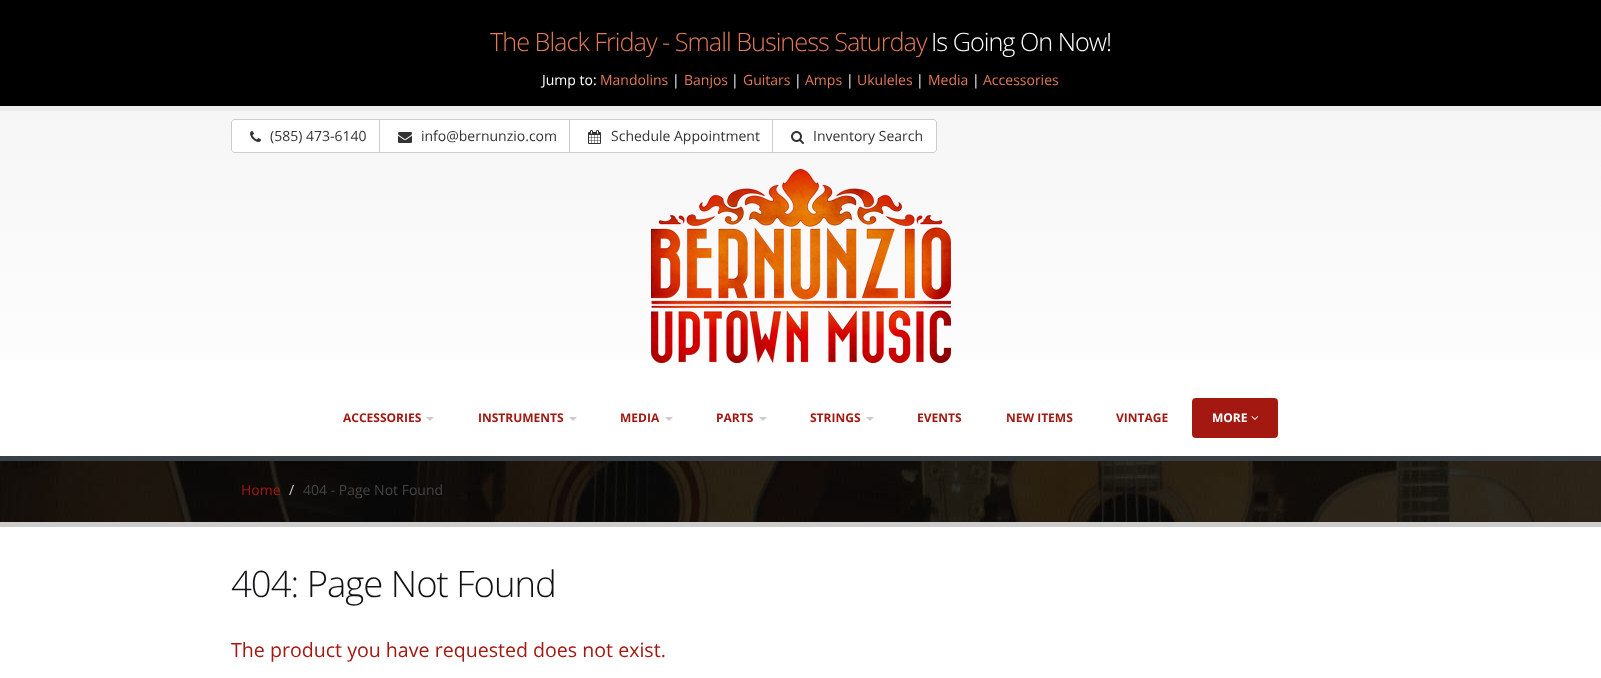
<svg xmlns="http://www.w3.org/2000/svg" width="1601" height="678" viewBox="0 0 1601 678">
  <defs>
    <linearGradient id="g1" gradientUnits="userSpaceOnUse" x1="801" y1="111" x2="801" y2="456"><stop offset="0" stop-color="rgb(246,246,246)"/><stop offset="1" stop-color="rgb(255,255,255)"/></linearGradient>
  </defs>
  <rect width="100%" height="100%" fill="rgb(255,255,255)"/>
  <rect x="0" y="0" width="1601" height="106" fill="rgb(0,0,0)"/>
  <text x="490" y="51" font-family="Open Sans" font-size="25.25" font-weight="300" letter-spacing="-1" fill="rgb(227,121,86)">The Black Friday - Small Business Saturday</text>
  <text x="931" y="51" font-family="Open Sans" font-size="25.25" font-weight="300" letter-spacing="-1" fill="rgb(255,255,255)">Is Going On Now!</text>
  <text x="542" y="85" font-family="Open Sans" font-size="14" fill="rgb(255,255,255)">Jump to:</text>
  <text x="600" y="85" font-family="Open Sans" font-size="14" fill="rgb(227,121,86)">Mandolins</text>
  <text x="672" y="85" font-family="Open Sans" font-size="14" fill="rgb(255,255,255)">|</text>
  <text x="684" y="85" font-family="Open Sans" font-size="14" fill="rgb(227,121,86)">Banjos</text>
  <text x="731" y="85" font-family="Open Sans" font-size="14" fill="rgb(255,255,255)">|</text>
  <text x="743" y="85" font-family="Open Sans" font-size="14" fill="rgb(227,121,86)">Guitars</text>
  <text x="794" y="85" font-family="Open Sans" font-size="14" fill="rgb(255,255,255)">|</text>
  <text x="805" y="85" font-family="Open Sans" font-size="14" fill="rgb(227,121,86)">Amps</text>
  <text x="846" y="85" font-family="Open Sans" font-size="14" fill="rgb(255,255,255)">|</text>
  <text x="857" y="85" font-family="Open Sans" font-size="14" fill="rgb(227,121,86)">Ukuleles</text>
  <text x="916" y="85" font-family="Open Sans" font-size="14" fill="rgb(255,255,255)">|</text>
  <text x="928" y="85" font-family="Open Sans" font-size="14" fill="rgb(227,121,86)">Media</text>
  <text x="972" y="85" font-family="Open Sans" font-size="14" fill="rgb(255,255,255)">|</text>
  <text x="983" y="85" font-family="Open Sans" font-size="14" fill="rgb(227,121,86)">Accessories</text>
  <rect x="0" y="111" width="1601" height="249" fill="url(#g1)"/>
  <rect x="0" y="106" width="1601" height="5" fill="rgb(237,237,237)"/>
  <path d="M235 119.5H379.5V152.5H235C233 152.5 231.5 151 231.5 149V123C231.5 121 233 119.5 235 119.5Z" fill="rgb(255,255,255)" stroke="rgb(204,204,204)"/>
  <image x="250" y="131" width="11" height="11" href="pic1.png"/>
  <text x="270" y="141" font-family="Open Sans" font-size="14" fill="rgb(51,51,51)">(585) 473-6140</text>
  <rect x="379.5" y="119.5" width="190" height="33" fill="rgb(255,255,255)" stroke="rgb(204,204,204)"/>
  <image x="398" y="132" width="14" height="11" href="pic2.png"/>
  <text x="421" y="141" font-family="Open Sans" font-size="14" fill="rgb(51,51,51)">info@bernunzio.com</text>
  <rect x="569.5" y="119.5" width="203" height="33" fill="rgb(255,255,255)" stroke="rgb(204,204,204)"/>
  <image x="588" y="130" width="13" height="14" href="pic3.png"/>
  <text x="611" y="141" font-family="Open Sans" font-size="14" fill="rgb(51,51,51)">Schedule Appointment</text>
  <path d="M772.5 119.5H933C935 119.5 936.5 121 936.5 123V149C936.5 151 935 152.5 933 152.5H772.5Z" fill="rgb(255,255,255)" stroke="rgb(204,204,204)"/>
  <image x="791" y="131" width="13" height="13" href="pic4.png"/>
  <text x="813" y="141" font-family="Open Sans" font-size="14" fill="rgb(51,51,51)">Inventory Search</text>
  <image x="651" y="169" width="300" height="194" href="pic5.png"/>
  <text x="343" y="422" font-family="Open Sans" font-size="12" font-weight="bold" fill="rgb(163,25,18)">ACCESSORIES</text>
  <path d="M426 417H434L430 421Z" fill="rgb(204,204,204)"/>
  <text x="478" y="422" font-family="Open Sans" font-size="12" font-weight="bold" fill="rgb(163,25,18)">INSTRUMENTS</text>
  <path d="M569 417H577L573 421Z" fill="rgb(204,204,204)"/>
  <text x="620" y="422" font-family="Open Sans" font-size="12" font-weight="bold" fill="rgb(163,25,18)">MEDIA</text>
  <path d="M665 417H673L669 421Z" fill="rgb(204,204,204)"/>
  <text x="716" y="422" font-family="Open Sans" font-size="12" font-weight="bold" fill="rgb(163,25,18)">PARTS</text>
  <path d="M759 417H767L763 421Z" fill="rgb(204,204,204)"/>
  <text x="810" y="422" font-family="Open Sans" font-size="12" font-weight="bold" fill="rgb(163,25,18)">STRINGS</text>
  <path d="M866 417H874L870 421Z" fill="rgb(204,204,204)"/>
  <g font-family="Open Sans" font-size="12" font-weight="bold" fill="rgb(163,25,18)">
    <text x="917" y="422">EVENTS</text>
    <text x="1006" y="422">NEW ITEMS</text>
    <text x="1116" y="422">VINTAGE</text>
  </g>
  <rect x="1192" y="398" width="86" height="40" rx="4" fill="rgb(163,25,18)"/>
  <text x="1212" y="422" font-family="Open Sans" font-size="12" font-weight="bold" fill="rgb(255,255,255)">MORE</text>
  <image x="1251" y="416" width="8" height="4" href="pic6.png"/>
  <image x="0" y="461" width="1601" height="61" href="pic7.png"/>
  <rect x="0" y="456" width="1601" height="5" fill="rgb(56,64,69)"/>
  <rect x="0" y="522" width="1601" height="5" fill="rgb(204,204,204)"/>
  <text x="241" y="495" font-family="Open Sans" font-size="14" fill="rgb(163,25,18)">Home</text>
  <text x="289" y="495" font-family="Open Sans" font-size="14" fill="rgb(204,204,204)">/</text>
  <text x="303" y="495" font-family="Open Sans" font-size="14" fill="rgb(69,69,69)">404 - Page Not Found</text>
  <text x="231" y="597" font-family="Open Sans" font-size="36.5" font-weight="300" letter-spacing="-1" fill="rgb(18,18,20)">404: Page Not Found</text>
  <text x="231" y="657" font-family="Open Sans" font-size="19.6" fill="rgb(163,25,18)">The product you have requested does not exist.</text>
</svg>
